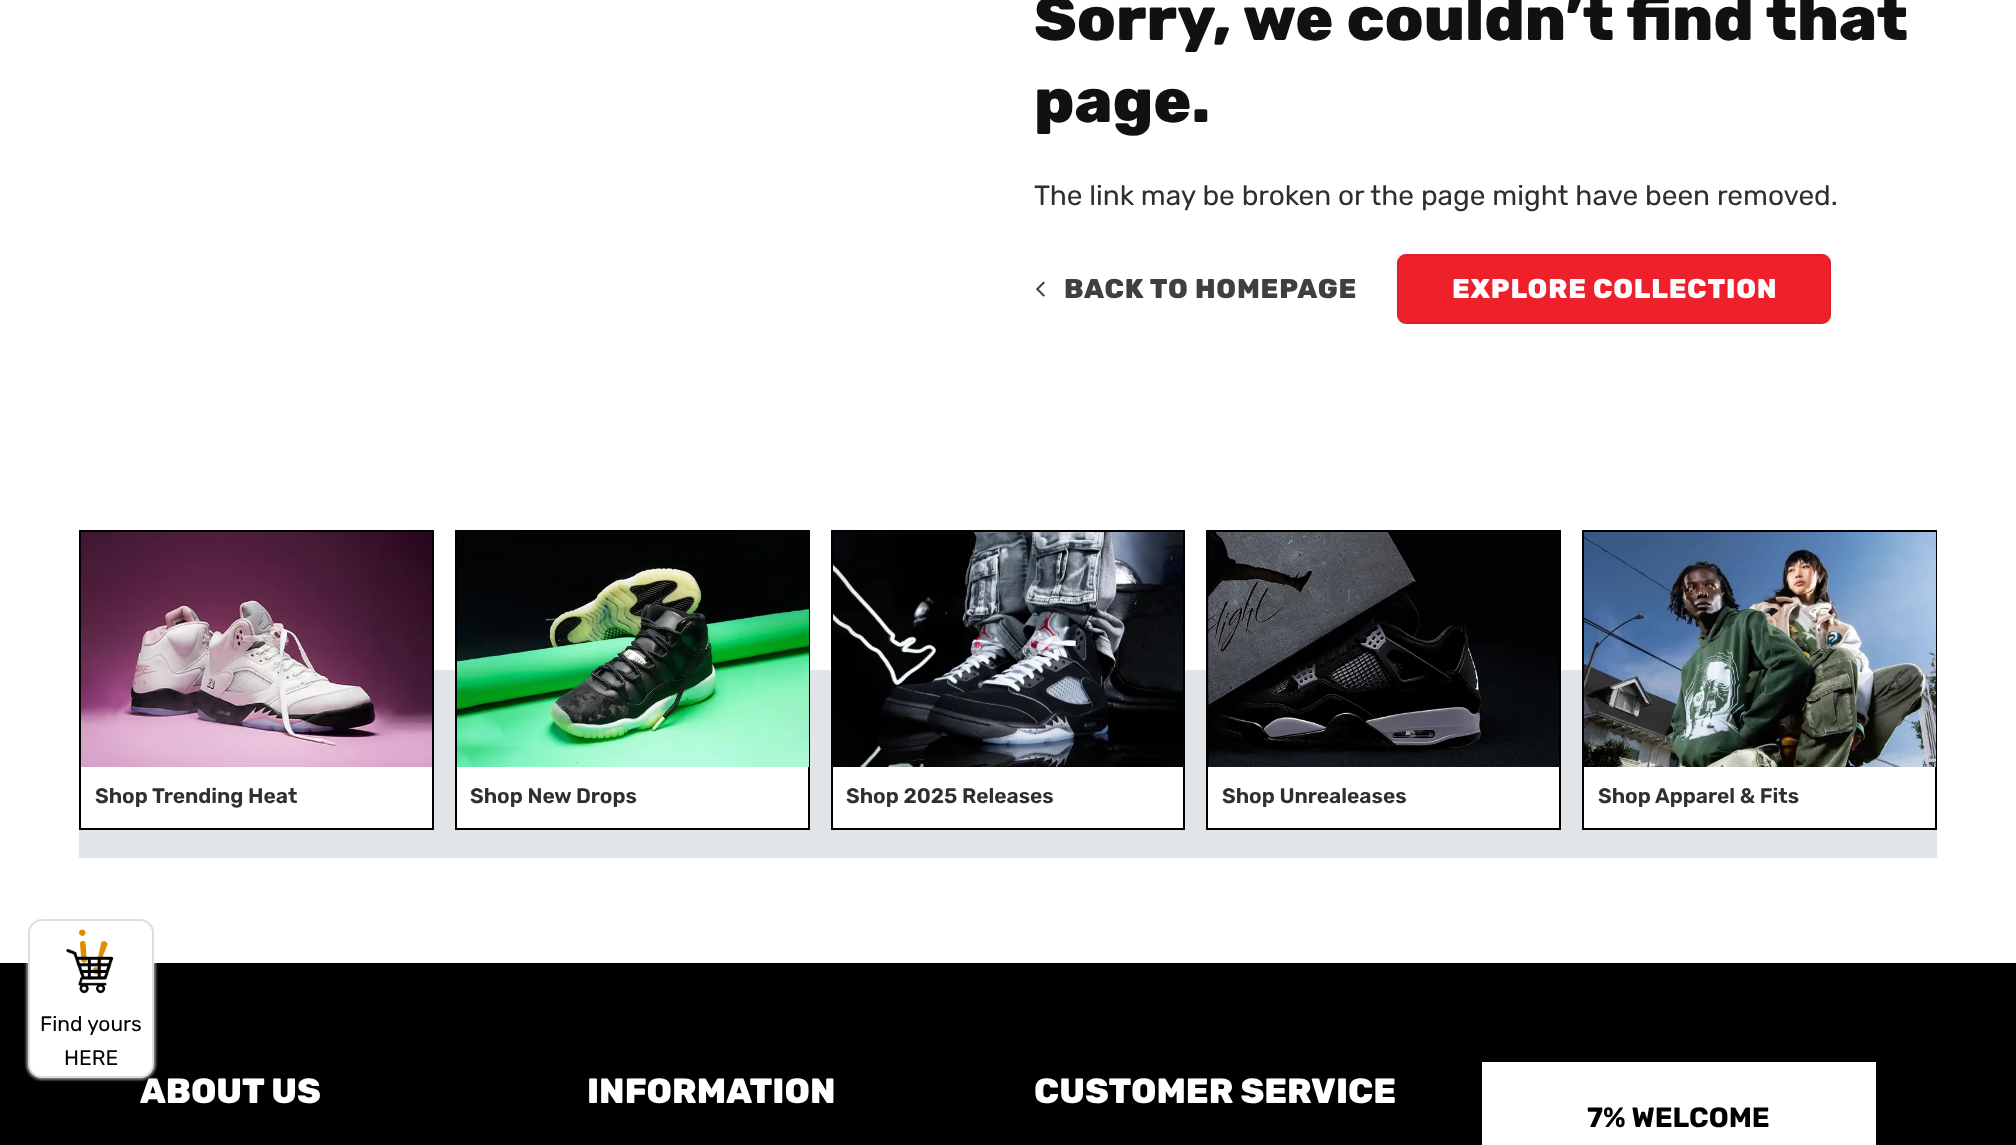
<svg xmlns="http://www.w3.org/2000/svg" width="2016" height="1145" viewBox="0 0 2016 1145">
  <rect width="100%" height="100%" fill="rgb(255,255,255)"/>
  <g font-family="Rubik" font-size="62.75" font-weight="800" fill="rgb(17,17,17)">
    <text>
      <tspan x="1034" y="40" word-spacing="0.5">Sorry, we couldn’t find that</tspan>
      <tspan x="1034" y="122">page.</tspan>
    </text>
  </g>
  <text x="1034" y="205" font-family="Rubik" font-size="28" fill="rgb(47,47,47)">The link may be broken or the page might have been removed.</text>
  <image x="1036" y="281" width="9" height="16" href="pic1.png"/>
  <text x="1064" y="298" font-family="Rubik" font-size="27.2" font-weight="800" letter-spacing="0.8" fill="rgb(63,63,63)">BACK TO HOMEPAGE</text>
  <rect x="1397" y="254" width="434" height="70" rx="9" fill="rgb(238,32,44)"/>
  <rect x="1398" y="255" width="432" height="68" fill="none" stroke="rgba(0,0,0,0.05)" stroke-width="2"/>
  <text x="1452" y="298" font-family="Rubik" font-size="27.2" font-weight="800" letter-spacing="0.8" fill="rgb(255,255,255)">EXPLORE COLLECTION</text>
  <rect x="79" y="670" width="1858" height="188" fill="rgb(226,229,232)"/>
  <rect x="81" y="767" width="351" height="61" fill="rgb(255,255,255)"/>
  <rect x="80" y="531" width="353" height="298" fill="none" stroke="rgb(0,0,0)" stroke-width="2"/>
  <image x="81" y="532" width="351" height="235" href="pic2.png"/>
  <text x="95" y="803" font-family="Rubik" font-size="21" font-weight="600" fill="rgb(47,47,47)">Shop Trending Heat</text>
  <rect x="457" y="767" width="351" height="61" fill="rgb(255,255,255)"/>
  <rect x="456" y="531" width="353" height="298" fill="none" stroke="rgb(0,0,0)" stroke-width="2"/>
  <image x="457" y="532" width="352" height="235" href="pic3.png"/>
  <text x="470" y="803" font-family="Rubik" font-size="21" font-weight="600" fill="rgb(47,47,47)">Shop New Drops</text>
  <rect x="833" y="767" width="350" height="61" fill="rgb(255,255,255)"/>
  <rect x="832" y="531" width="352" height="298" fill="none" stroke="rgb(0,0,0)" stroke-width="2"/>
  <image x="833" y="532" width="350" height="235" href="pic4.png"/>
  <text x="846" y="803" font-family="Rubik" font-size="21" font-weight="600" fill="rgb(47,47,47)">Shop 2025 Releases</text>
  <rect x="1208" y="767" width="351" height="61" fill="rgb(255,255,255)"/>
  <rect x="1207" y="531" width="353" height="298" fill="none" stroke="rgb(0,0,0)" stroke-width="2"/>
  <image x="1208" y="532" width="351" height="235" href="pic5.png"/>
  <text x="1222" y="803" font-family="Rubik" font-size="21" font-weight="600" fill="rgb(47,47,47)">Shop Unrealeases</text>
  <rect x="1584" y="767" width="351" height="61" fill="rgb(255,255,255)"/>
  <rect x="1583" y="531" width="353" height="298" fill="none" stroke="rgb(0,0,0)" stroke-width="2"/>
  <image x="1584" y="532" width="352" height="235" href="pic6.png"/>
  <text x="1598" y="803" font-family="Rubik" font-size="21" font-weight="600" fill="rgb(47,47,47)">Shop Apparel &amp; Fits</text>
  <rect x="0" y="963" width="2016" height="182" fill="rgb(0,0,0)"/>
  <rect x="26" y="917" width="130" height="163" rx="16" fill="rgba(255,255,255,0.5)" filter="blur(1px)"/>
  <rect x="29" y="920" width="124" height="157" rx="13" fill="rgb(255,255,255)" stroke="rgb(222,222,222)" stroke-width="2"/>
  <image x="66" y="929" width="48" height="65" href="pic7.png"/>
  <g font-family="Rubik" font-size="21" fill="rgb(0,0,0)">
    <text x="40" y="1031">Find yours</text>
    <text x="64" y="1065">HERE</text>
  </g>
  <g font-family="Rubik" font-size="35" font-weight="800" fill="rgb(255,255,255)">
    <text x="140" y="1103">ABOUT US</text>
    <text x="587" y="1103">INFORMATION</text>
    <text x="1034" y="1103">CUSTOMER SERVICE</text>
  </g>
  <rect x="1482" y="1062" width="394" height="83" fill="rgb(255,255,255)"/>
  <text x="1587" y="1127" font-family="Rubik" font-size="28" font-weight="bold" fill="rgb(0,0,0)">7% WELCOME</text>
</svg>
